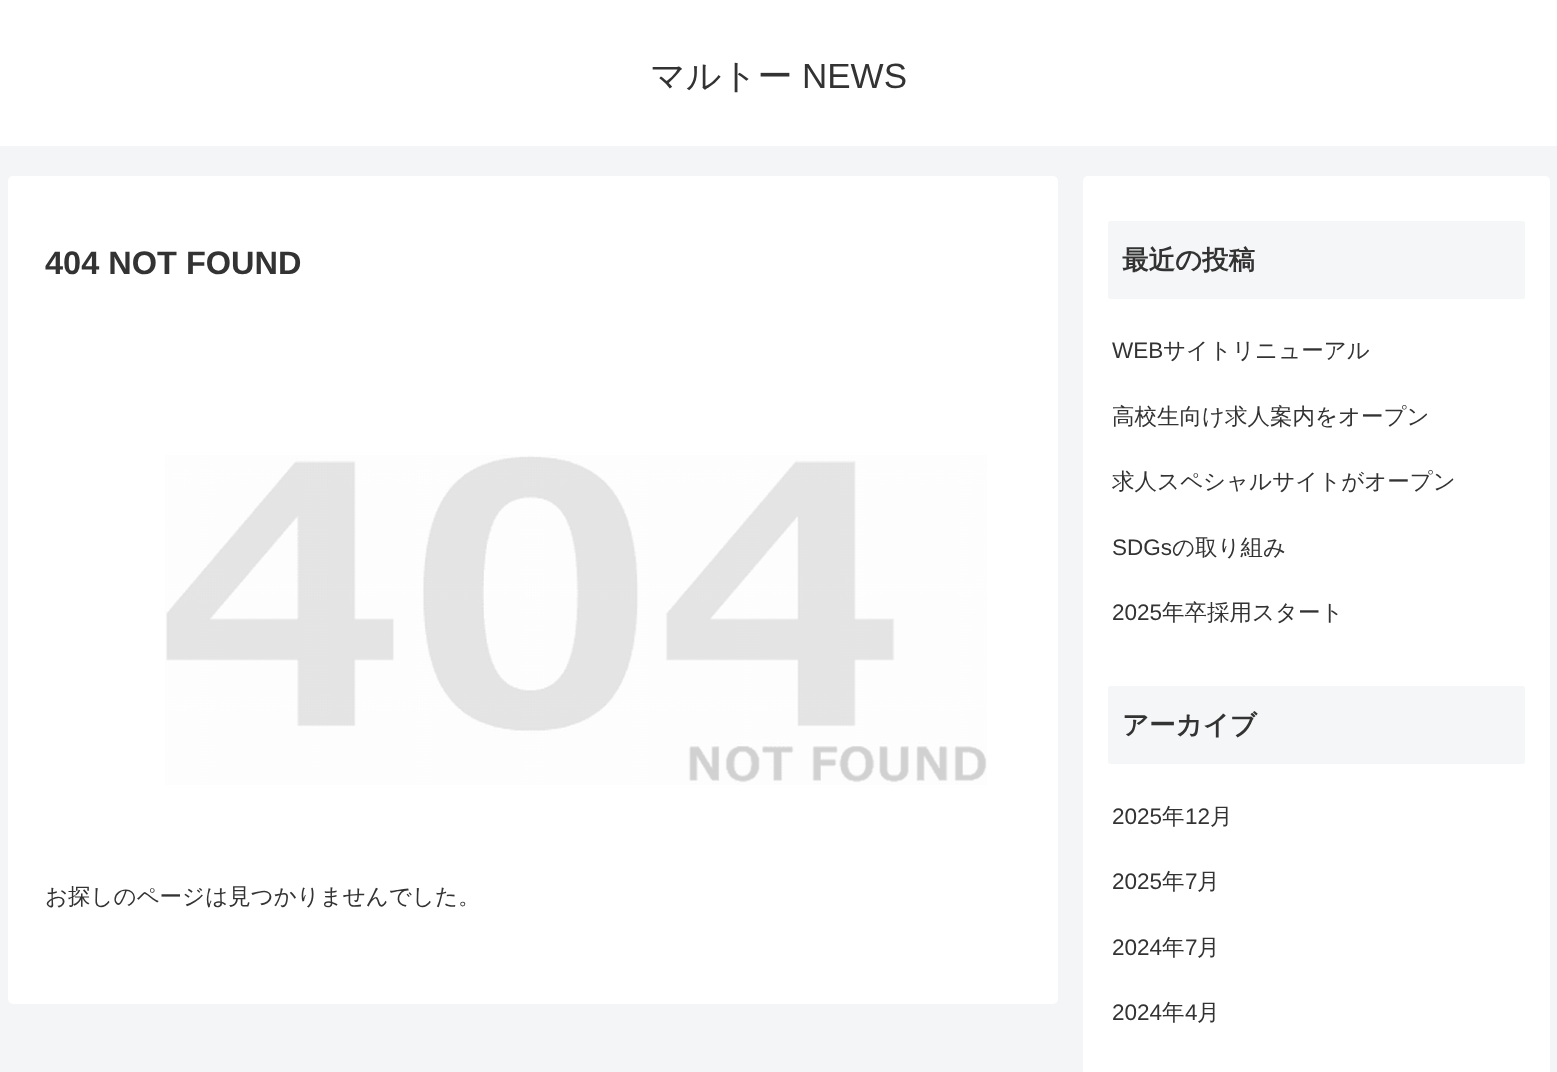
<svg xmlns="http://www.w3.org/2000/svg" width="1557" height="1072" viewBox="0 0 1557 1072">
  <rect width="100%" height="100%" fill="rgb(244,245,247)"/>
  <rect x="0" y="0" width="1557" height="146" fill="rgb(255,255,255)"/>
  <text x="650" y="88" font-family="WenQuanYi Zen Hei" font-size="35" font-weight="500" fill="rgb(51,51,51)">マルトー</text>
  <text x="802" y="88" font-family="Liberation Sans" font-size="35" fill="rgb(51,51,51)">NEWS</text>
  <rect x="8" y="176" width="1050" height="828" rx="5" fill="rgb(255,255,255)"/>
  <text x="45" y="274" font-family="Liberation Sans" font-size="32.5" font-weight="bold" fill="rgb(51,51,51)">404 NOT FOUND</text>
  <image x="165" y="455" width="822" height="330" href="pic1.png"/>
  <text x="45" y="904" font-family="WenQuanYi Zen Hei" font-size="22.5" font-weight="500" fill="rgb(51,51,51)">お探しのページは見つかりませんでした。</text>
  <rect x="1083" y="176" width="467" height="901" rx="5" fill="rgb(255,255,255)"/>
  <rect x="1108" y="221" width="417" height="78" rx="2.5" fill="rgb(245,246,247)"/>
  <text x="1122" y="269" font-family="WenQuanYi Zen Hei" font-size="26.5" font-weight="bold" fill="rgb(51,51,51)">最近の投稿</text>
  <text x="1112" y="358" font-family="Liberation Sans" font-size="22.5" fill="rgb(51,51,51)">WEB</text>
  <g font-family="WenQuanYi Zen Hei" font-size="22.5" font-weight="500" fill="rgb(51,51,51)">
    <text x="1163" y="358">サイトリニューアル</text>
    <text x="1112" y="424">高校生向け求人案内をオープン</text>
    <text x="1112" y="489">求人スペシャルサイトがオープン</text>
  </g>
  <text x="1112" y="555" font-family="Liberation Sans" font-size="22.5" fill="rgb(51,51,51)">SDGs</text>
  <text x="1172" y="555" font-family="WenQuanYi Zen Hei" font-size="22.5" font-weight="500" fill="rgb(51,51,51)">の取り組み</text>
  <text x="1112" y="620" font-family="Liberation Sans" font-size="22.5" fill="rgb(51,51,51)">2025</text>
  <text x="1162" y="620" font-family="WenQuanYi Zen Hei" font-size="22.5" font-weight="500" fill="rgb(51,51,51)">年卒採用スタート</text>
  <rect x="1108" y="686" width="417" height="78" rx="2.5" fill="rgb(245,246,247)"/>
  <text x="1122" y="734" font-family="WenQuanYi Zen Hei" font-size="26.5" font-weight="bold" fill="rgb(51,51,51)">アーカイブ</text>
  <text x="1112" y="824" font-family="Liberation Sans" font-size="22.5" fill="rgb(51,51,51)">2025</text>
  <text x="1162" y="824" font-family="WenQuanYi Zen Hei" font-size="22.5" font-weight="500" fill="rgb(51,51,51)">年</text>
  <text x="1185" y="824" font-family="Liberation Sans" font-size="22.5" fill="rgb(51,51,51)">12</text>
  <text x="1210" y="824" font-family="WenQuanYi Zen Hei" font-size="22.5" font-weight="500" fill="rgb(51,51,51)">月</text>
  <text x="1112" y="889" font-family="Liberation Sans" font-size="22.5" fill="rgb(51,51,51)">2025</text>
  <text x="1162" y="889" font-family="WenQuanYi Zen Hei" font-size="22.5" font-weight="500" fill="rgb(51,51,51)">年</text>
  <text x="1185" y="889" font-family="Liberation Sans" font-size="22.5" fill="rgb(51,51,51)">7</text>
  <text x="1197" y="889" font-family="WenQuanYi Zen Hei" font-size="22.5" font-weight="500" fill="rgb(51,51,51)">月</text>
  <text x="1112" y="955" font-family="Liberation Sans" font-size="22.5" fill="rgb(51,51,51)">2024</text>
  <text x="1162" y="955" font-family="WenQuanYi Zen Hei" font-size="22.5" font-weight="500" fill="rgb(51,51,51)">年</text>
  <text x="1185" y="955" font-family="Liberation Sans" font-size="22.5" fill="rgb(51,51,51)">7</text>
  <text x="1197" y="955" font-family="WenQuanYi Zen Hei" font-size="22.5" font-weight="500" fill="rgb(51,51,51)">月</text>
  <text x="1112" y="1020" font-family="Liberation Sans" font-size="22.5" fill="rgb(51,51,51)">2024</text>
  <text x="1162" y="1020" font-family="WenQuanYi Zen Hei" font-size="22.5" font-weight="500" fill="rgb(51,51,51)">年</text>
  <text x="1185" y="1020" font-family="Liberation Sans" font-size="22.5" fill="rgb(51,51,51)">4</text>
  <text x="1197" y="1020" font-family="WenQuanYi Zen Hei" font-size="22.5" font-weight="500" fill="rgb(51,51,51)">月</text>
</svg>
